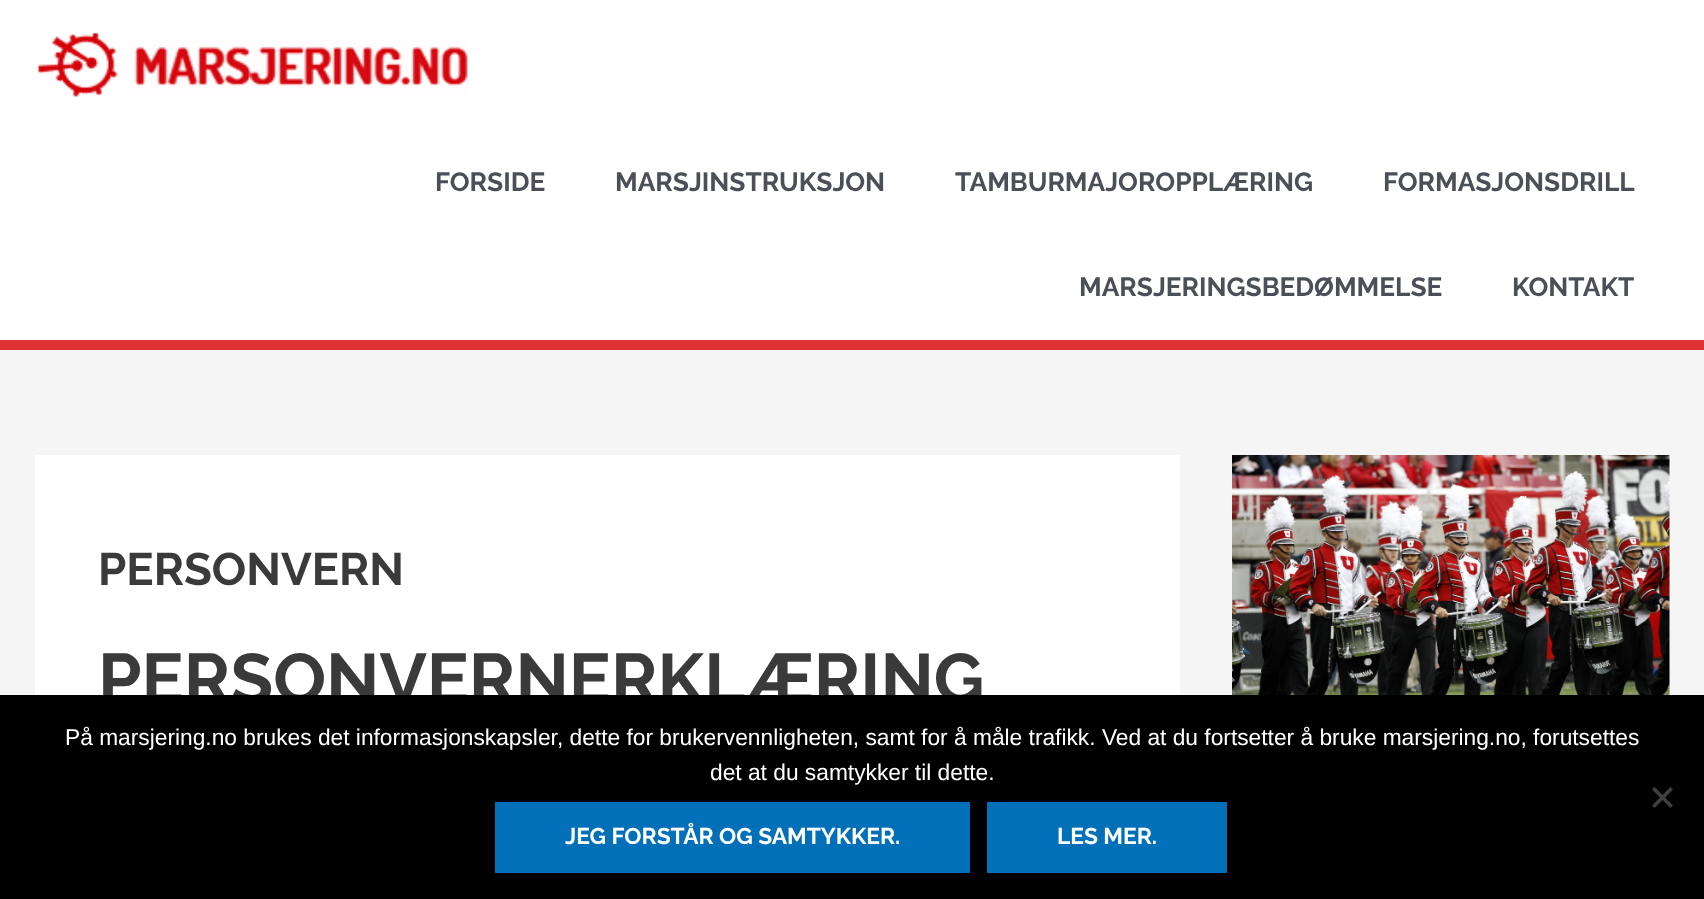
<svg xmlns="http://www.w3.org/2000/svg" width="1704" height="899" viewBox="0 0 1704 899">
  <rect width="100%" height="100%" fill="rgb(245,245,245)"/>
  <rect x="0" y="0" width="1704" height="340" fill="rgb(255,255,255)"/>
  <rect x="0" y="340" width="1704" height="10" fill="rgb(221,51,51)"/>
  <image x="38" y="32" width="430" height="65" href="pic1.png"/>
  <g font-family="Raleway" font-size="26.25" font-weight="100" fill="rgb(75,79,88)">
    <text x="435" y="191">FORSIDE</text>
    <text x="615" y="191">MARSJINSTRUKSJON</text>
    <text x="955" y="191">TAMBURMAJOROPPLÆRING</text>
    <text x="1383" y="191">FORMASJONSDRILL</text>
    <text x="1079" y="296">MARSJERINGSBEDØMMELSE</text>
    <text x="1512" y="296">KONTAKT</text>
  </g>
  <rect x="35" y="455" width="1145" height="240" fill="rgb(255,255,255)"/>
  <text x="98" y="585" font-family="Raleway" font-size="45.5" font-weight="100" fill="rgb(58,58,58)">PERSONVERN</text>
  <text x="98" y="703" font-family="Raleway" font-size="70" font-weight="100" fill="rgb(58,58,58)">PERSONVERNERKLÆRING</text>
  <image x="1232" y="455" width="438" height="240" href="pic2.png"/>
  <rect x="0" y="695" width="1704" height="204" fill="rgb(0,0,0)"/>
  <g font-family="Liberation Sans" font-size="22.75" fill="rgb(255,255,255)">
    <text x="65" y="745">På marsjering.no brukes det informasjonskapsler, dette for brukervennligheten, samt for å måle trafikk. Ved at du fortsetter å bruke marsjering.no, forutsettes</text>
    <text x="710" y="780">det at du samtykker til dette.</text>
  </g>
  <path d="M1670.5 787L1673 789.5L1654.5 808L1652 805.5Z" fill="rgb(64,64,64)"/>
  <path d="M1652 789.5L1654.5 787L1673 805.5L1670.5 808Z" fill="rgb(64,64,64)"/>
  <rect x="495" y="802" width="475" height="71" fill="rgb(1,112,185)"/>
  <text x="565" y="844" font-family="Raleway" font-size="22.75" font-weight="100" fill="rgb(255,255,255)">JEG FORSTÅR OG SAMTYKKER.</text>
  <rect x="987" y="802" width="240" height="71" fill="rgb(1,112,185)"/>
  <text x="1057" y="844" font-family="Raleway" font-size="22.75" font-weight="100" fill="rgb(255,255,255)">LES MER.</text>
</svg>
